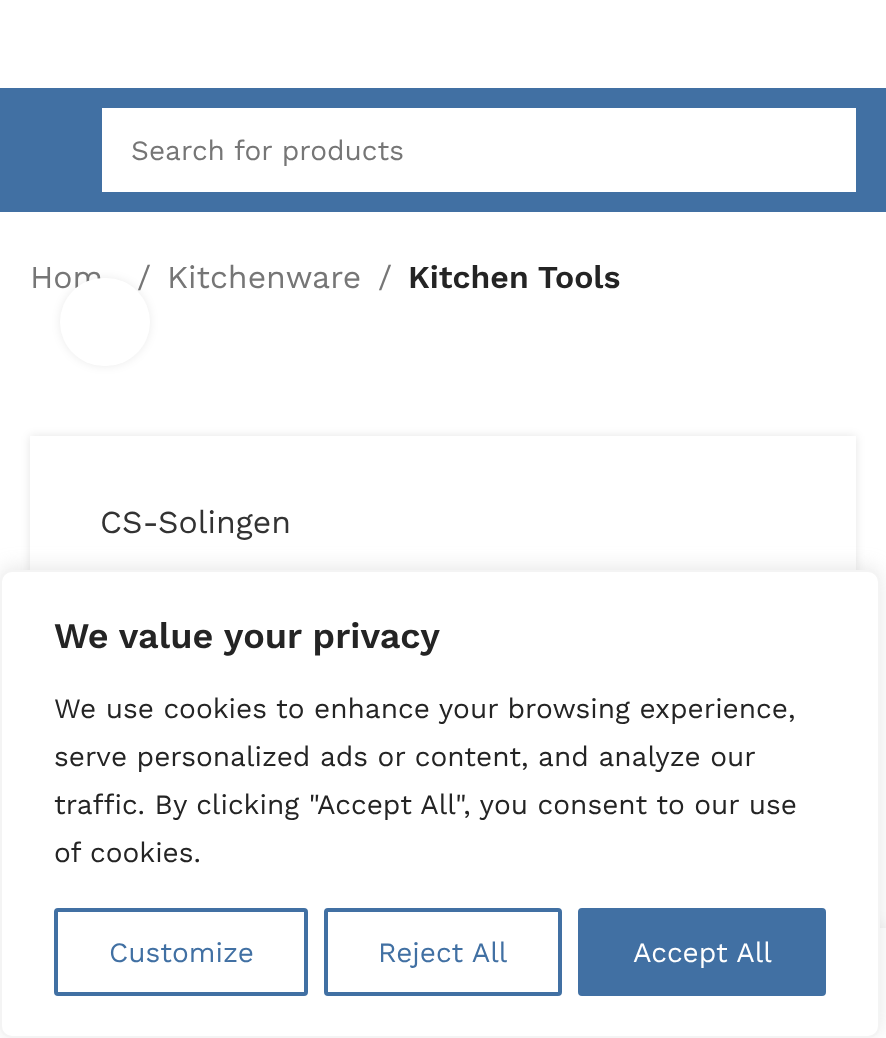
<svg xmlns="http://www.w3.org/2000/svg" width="886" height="1038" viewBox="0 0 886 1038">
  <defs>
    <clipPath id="clip1"><path d="M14 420H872V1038H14ZM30 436H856V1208H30Z" clip-rule="evenodd"/></clipPath>
  </defs>
  <rect width="100%" height="100%" fill="rgb(255,255,255)"/>
  <rect x="0" y="88" width="886" height="124" fill="rgb(65,112,163)"/>
  <rect x="102" y="108" width="754" height="84" fill="rgb(255,255,255)"/>
  <text x="131" y="160" font-family="Work Sans" font-size="28" fill="rgb(118,118,118)">Search for products</text>
  <g font-family="Work Sans" font-size="32" fill="rgb(118,118,118)">
    <text x="30" y="288">Hom</text>
    <text x="137" y="288">/</text>
    <text x="167" y="288">Kitchenware</text>
    <text x="378" y="288">/</text>
  </g>
  <text x="408" y="288" font-family="Work Sans" font-size="32" font-weight="600" fill="rgb(36,36,36)">Kitchen Tools</text>
  <rect x="60" y="278" width="90" height="88" rx="44" fill="rgba(0,0,0,0.08)" filter="blur(5px)"/>
  <rect x="60" y="278" width="90" height="88" rx="44" fill="rgb(255,255,255)"/>
  <g clip-path="url(#clip1)">
    <rect x="30" y="436" width="826" height="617" fill="rgba(0,0,0,0.1)" filter="blur(5px)"/>
  </g>
  <text x="100" y="533" font-family="Work Sans" font-size="32" fill="rgb(51,51,51)">CS-Solingen</text>
  <rect x="0" y="928" width="886" height="110" fill="rgba(0,0,0,0.12)" filter="blur(9px)"/>
  <rect x="0" y="928" width="886" height="110" fill="rgb(255,255,255)"/>
  <rect x="0" y="568" width="880" height="468" rx="12" fill="rgba(172,171,171,0.3)" filter="blur(10px)"/>
  <rect x="1" y="571" width="878" height="466" rx="11" fill="rgb(255,255,255)" stroke="rgb(244,244,244)" stroke-width="2"/>
  <text x="54" y="648" font-family="Work Sans" font-size="36" font-weight="600" fill="rgb(36,36,36)">We value your privacy</text>
  <g font-family="Work Sans" font-size="28" fill="rgb(36,36,36)">
    <text>
      <tspan x="54" y="718">We use cookies to enhance your browsing experience,</tspan>
      <tspan x="54" y="766">serve personalized ads or content, and analyze our</tspan>
      <tspan x="54" y="814">traffic. By clicking "Accept All", you consent to our use</tspan>
      <tspan x="54" y="862">of cookies.</tspan>
    </text>
  </g>
  <rect x="56" y="910" width="250" height="84" rx="2" fill="none" stroke="rgb(65,112,163)" stroke-width="4"/>
  <text x="109" y="962" font-family="Work Sans" font-size="28" fill="rgb(65,112,163)">Customize</text>
  <rect x="326" y="910" width="234" height="84" rx="2" fill="none" stroke="rgb(65,112,163)" stroke-width="4"/>
  <text x="378" y="962" font-family="Work Sans" font-size="28" fill="rgb(65,112,163)">Reject All</text>
  <rect x="580" y="910" width="244" height="84" rx="2" fill="rgb(65,112,163)" stroke="rgb(65,112,163)" stroke-width="4"/>
  <text x="633" y="962" font-family="Work Sans" font-size="28" fill="rgb(255,255,255)">Accept All</text>
</svg>
